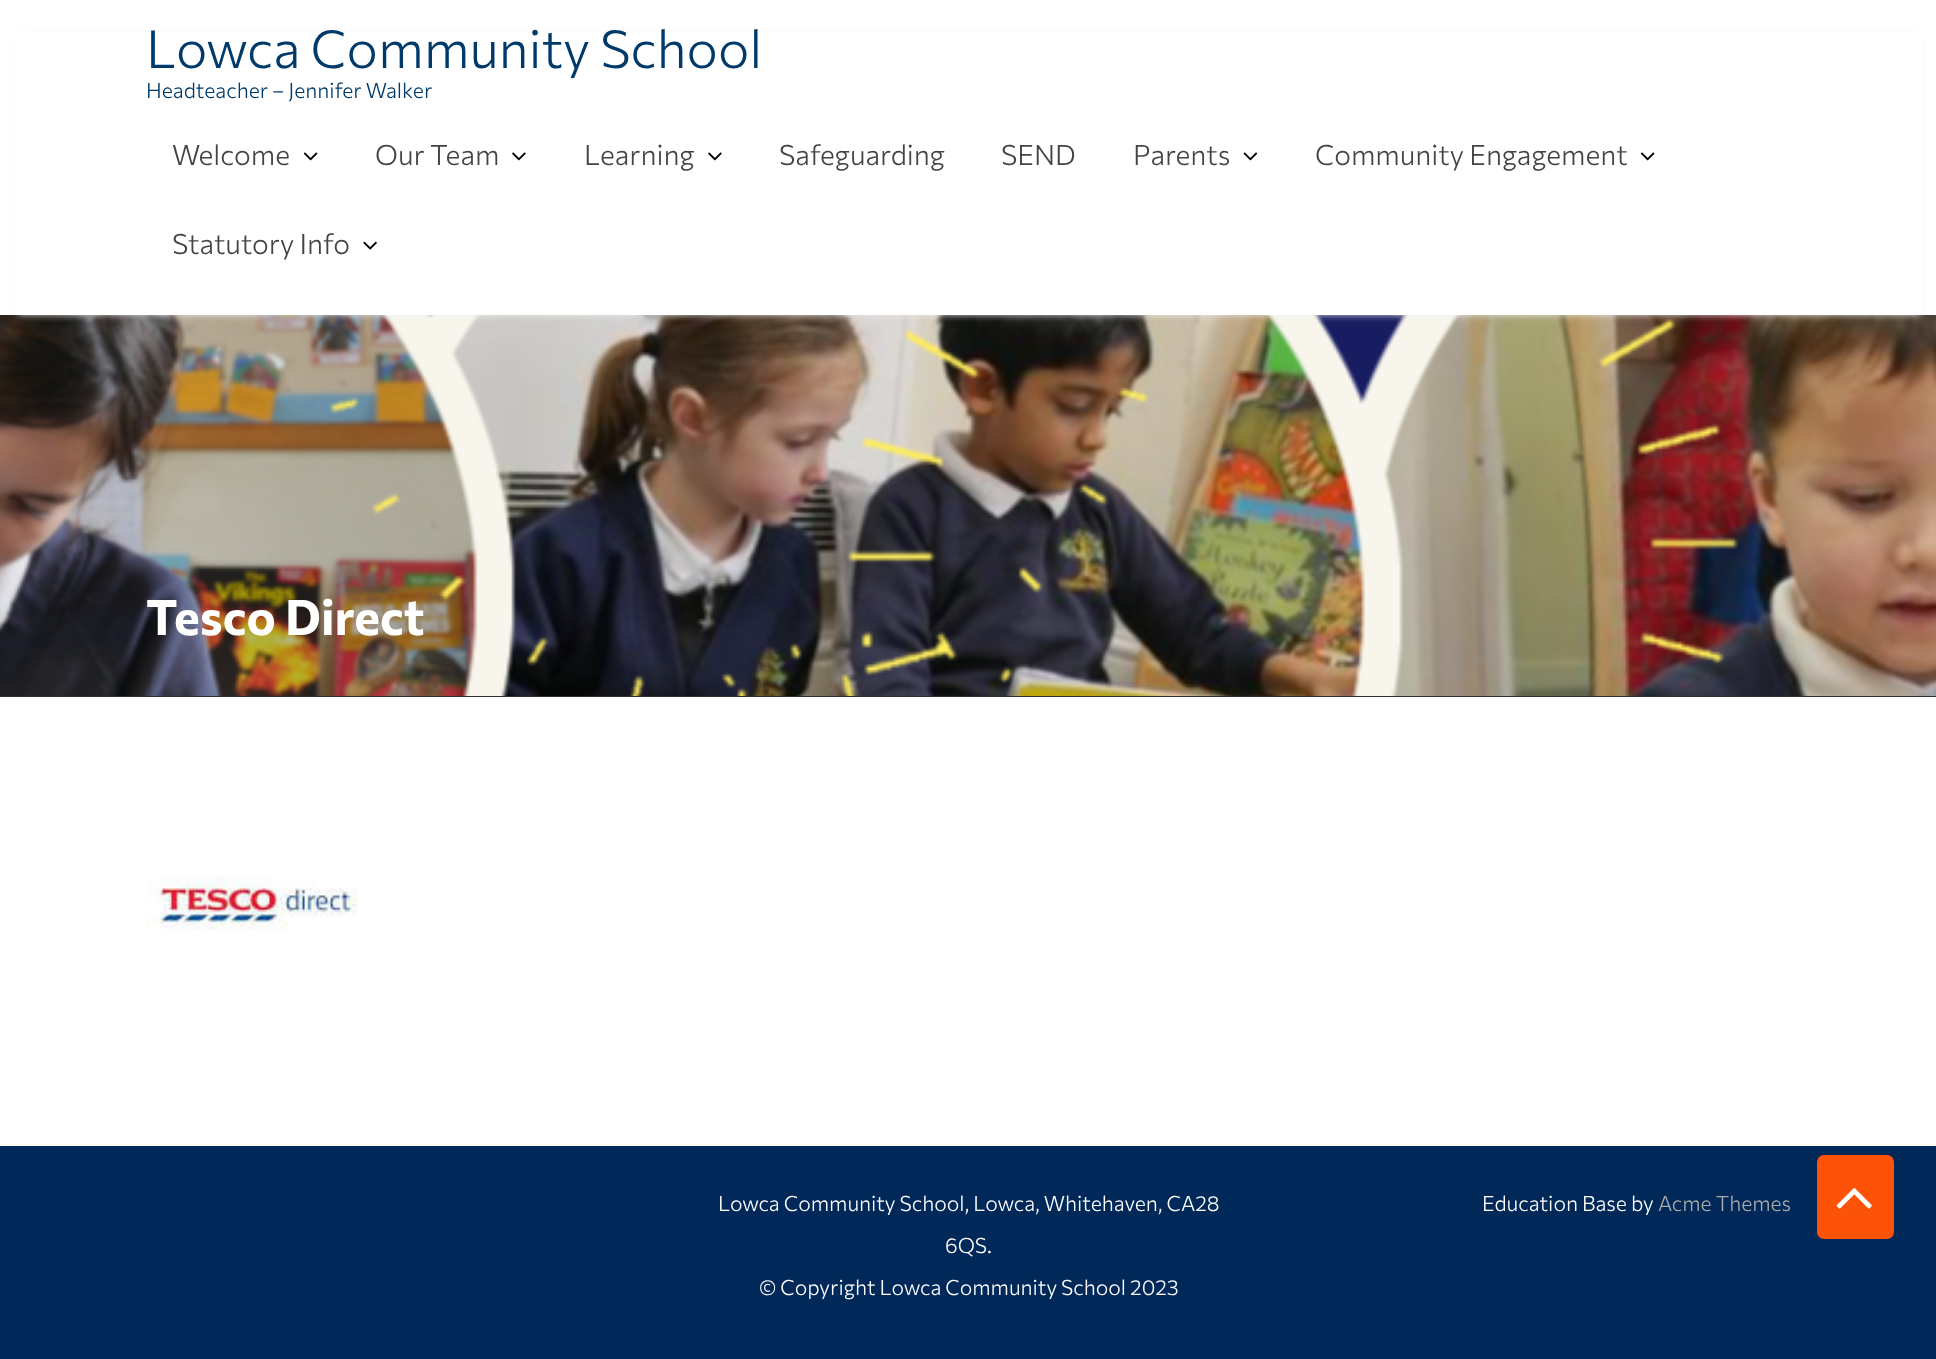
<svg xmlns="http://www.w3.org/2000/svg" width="1936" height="1359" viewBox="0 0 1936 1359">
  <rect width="100%" height="100%" fill="rgb(255,255,255)"/>
  <image x="0" y="315" width="1936" height="381" href="pic5.png"/>
  <rect x="18" y="35" width="1902" height="280" fill="rgba(238,238,238,0.9)" filter="blur(3.5px)"/>
  <rect x="15" y="32" width="1908" height="283" fill="rgb(255,255,255)"/>
  <text x="146" y="68" font-family="Commissioner" font-size="52.5" font-weight="300" fill="rgb(0,58,106)">Lowca Community School</text>
  <text x="146" y="98" font-family="Commissioner" font-size="21" font-weight="300" fill="rgb(0,58,106)">Headteacher – Jennifer Walker</text>
  <text x="172" y="165" font-family="Commissioner" font-size="28" font-weight="300" fill="rgb(68,68,68)">Welcome</text>
  <image x="303" y="152" width="15" height="9" href="pic1.png"/>
  <text x="375" y="165" font-family="Commissioner" font-size="28" font-weight="300" fill="rgb(68,68,68)">Our Team</text>
  <image x="512" y="152" width="14" height="9" href="pic2.png"/>
  <text x="584" y="165" font-family="Commissioner" font-size="28" font-weight="300" fill="rgb(68,68,68)">Learning</text>
  <image x="708" y="152" width="14" height="9" href="pic2.png"/>
  <g font-family="Commissioner" font-size="28" font-weight="300" fill="rgb(68,68,68)">
    <text x="779" y="165">Safeguarding</text>
    <text x="1001" y="165">SEND</text>
    <text x="1133" y="165">Parents</text>
  </g>
  <image x="1243" y="152" width="15" height="9" href="pic3.png"/>
  <text x="1315" y="165" font-family="Commissioner" font-size="28" font-weight="300" fill="rgb(68,68,68)">Community Engagement</text>
  <image x="1640" y="152" width="15" height="9" href="pic1.png"/>
  <text x="172" y="254" font-family="Commissioner" font-size="28" font-weight="300" fill="rgb(68,68,68)">Statutory Info</text>
  <image x="363" y="241" width="14" height="9" href="pic4.png"/>
  <rect x="0" y="696" width="1936" height="1" fill="rgb(45,45,45)"/>
  <text x="146" y="635" font-family="Commissioner" font-size="49" font-weight="bold" fill="rgb(255,255,255)">Tesco Direct</text>
  <image x="147" y="875" width="211" height="56" href="pic6.png"/>
  <rect x="0" y="1146" width="1936" height="213" fill="rgb(0,40,88)"/>
  <g font-family="Commissioner" font-size="21" font-weight="300" fill="rgb(255,255,255)">
    <text x="718" y="1211">Lowca Community School, Lowca, Whitehaven, CA28</text>
    <text x="945" y="1253">6QS.</text>
    <text x="759" y="1295">© Copyright Lowca Community School 2023</text>
    <text x="1482" y="1211">Education Base by</text>
  </g>
  <text x="1658" y="1211" font-family="Commissioner" font-size="21" font-weight="300" fill="rgb(170,170,170)">Acme Themes</text>
  <rect x="1817" y="1155" width="77" height="84" rx="7" fill="rgb(253,83,8)"/>
  <image x="1836" y="1188" width="36" height="21" href="pic7.png"/>
</svg>
